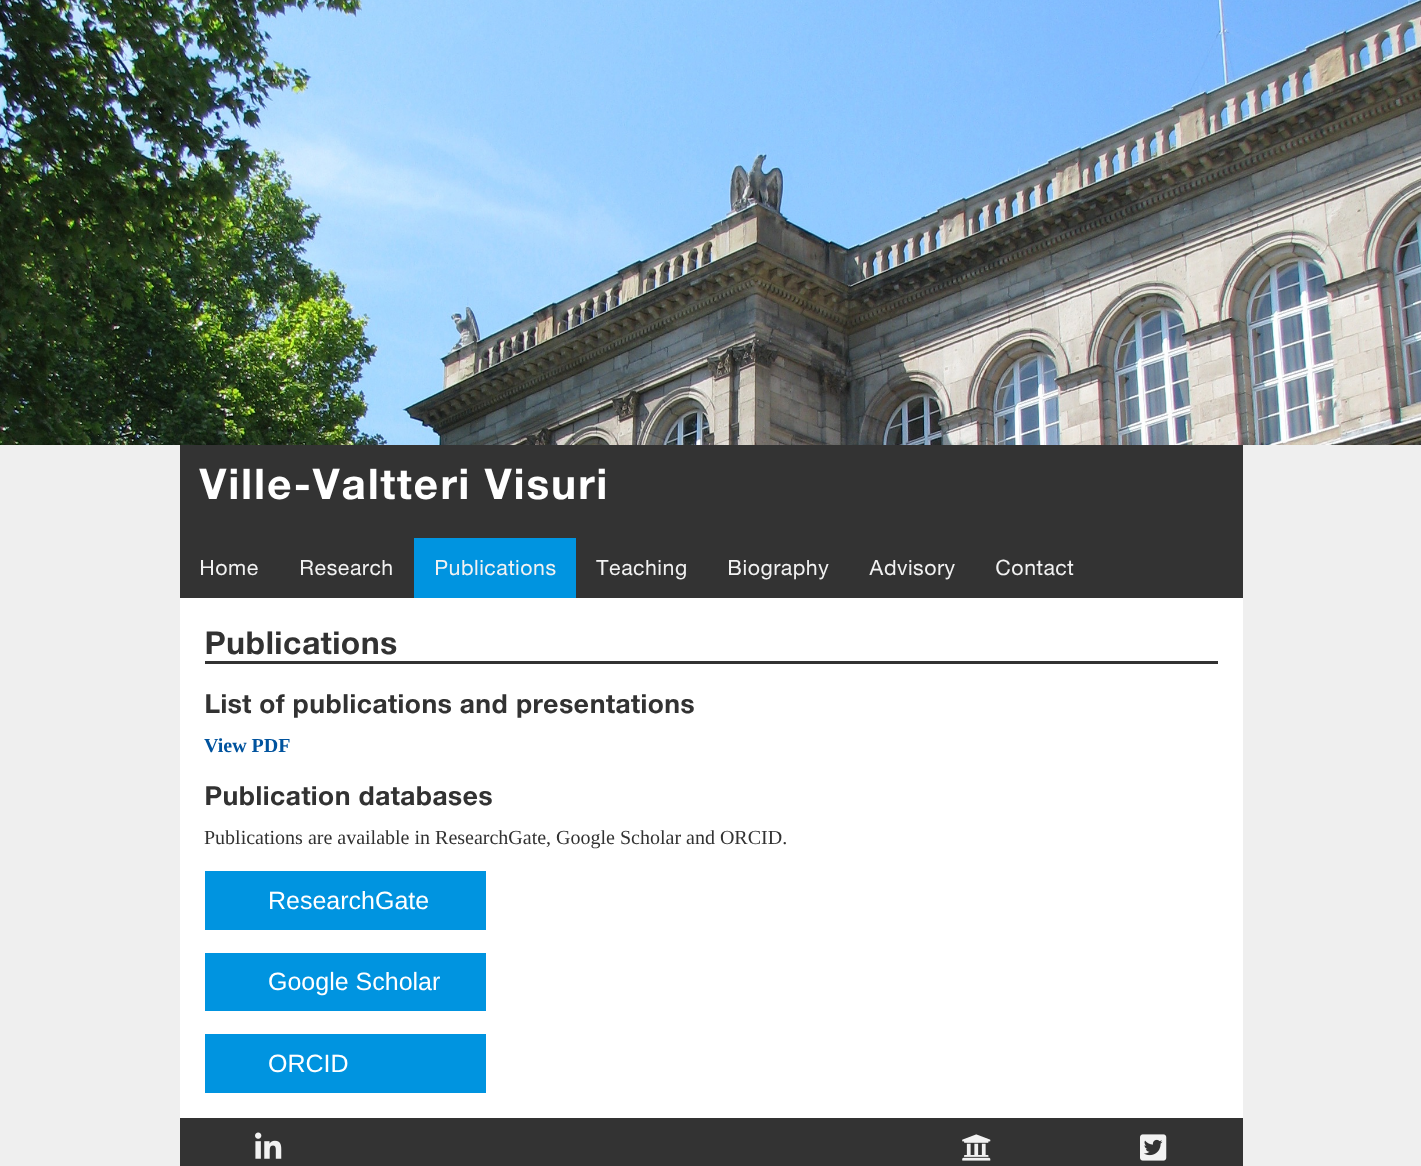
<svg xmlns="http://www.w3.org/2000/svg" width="1421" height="1166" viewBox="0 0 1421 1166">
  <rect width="100%" height="100%" fill="rgb(239,239,239)"/>
  <image x="0" y="0" width="1421" height="445" href="pic1.png"/>
  <rect x="180" y="445" width="1063" height="153" fill="rgb(51,51,51)"/>
  <text x="199" y="499" font-family="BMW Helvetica" font-size="40" font-weight="bold" letter-spacing="1.25" fill="rgb(255,255,255)">Ville-Valtteri Visuri</text>
  <g font-family="BMW Helvetica" font-size="20" fill="rgb(242,242,242)">
    <text x="199" y="575">Home</text>
    <text x="299" y="575">Research</text>
  </g>
  <rect x="414" y="538" width="162" height="60" fill="rgb(0,148,224)"/>
  <g font-family="BMW Helvetica" font-size="20" fill="rgb(242,242,242)">
    <text x="434" y="575">Publications</text>
    <text x="596" y="575">Teaching</text>
    <text x="727" y="575">Biography</text>
    <text x="869" y="575">Advisory</text>
    <text x="995" y="575">Contact</text>
  </g>
  <rect x="180" y="598" width="1063" height="520" fill="rgb(255,255,255)"/>
  <rect x="205" y="661" width="1013" height="3" fill="rgb(50,50,50)"/>
  <text x="204" y="654" font-family="BMW Helvetica" font-size="30" font-weight="bold" fill="rgb(50,50,50)">Publications</text>
  <text x="204" y="713" font-family="BMW Helvetica" font-size="25" font-weight="bold" fill="rgb(50,50,50)">List of publications and presentations</text>
  <text x="204" y="752" font-family="Liberation Serif" font-size="20" font-weight="bold" fill="rgb(0,83,158)">View PDF</text>
  <text x="204" y="805" font-family="BMW Helvetica" font-size="25" font-weight="bold" fill="rgb(50,50,50)">Publication databases</text>
  <text x="204" y="844" font-family="Liberation Serif" font-size="20" fill="rgb(50,50,50)">Publications are available in ResearchGate, Google Scholar and ORCID.</text>
  <rect x="205" y="871" width="281" height="59" fill="rgb(0,148,224)"/>
  <text x="268" y="909" font-family="Liberation Sans" font-size="25" fill="rgb(255,255,255)">ResearchGate</text>
  <rect x="205" y="953" width="281" height="58" fill="rgb(0,148,224)"/>
  <text x="268" y="990" font-family="Liberation Sans" font-size="25" fill="rgb(255,255,255)">Google Scholar</text>
  <rect x="205" y="1034" width="281" height="59" fill="rgb(0,148,224)"/>
  <text x="268" y="1072" font-family="Liberation Sans" font-size="25" fill="rgb(255,255,255)">ORCID</text>
  <rect x="180" y="1118" width="1063" height="48" fill="rgb(51,51,51)"/>
  <image x="255" y="1132" width="27" height="27" href="pic2.png"/>
  <image x="962" y="1134" width="29" height="27" href="pic3.png"/>
  <image x="1140" y="1134" width="27" height="27" href="pic4.png"/>
</svg>
